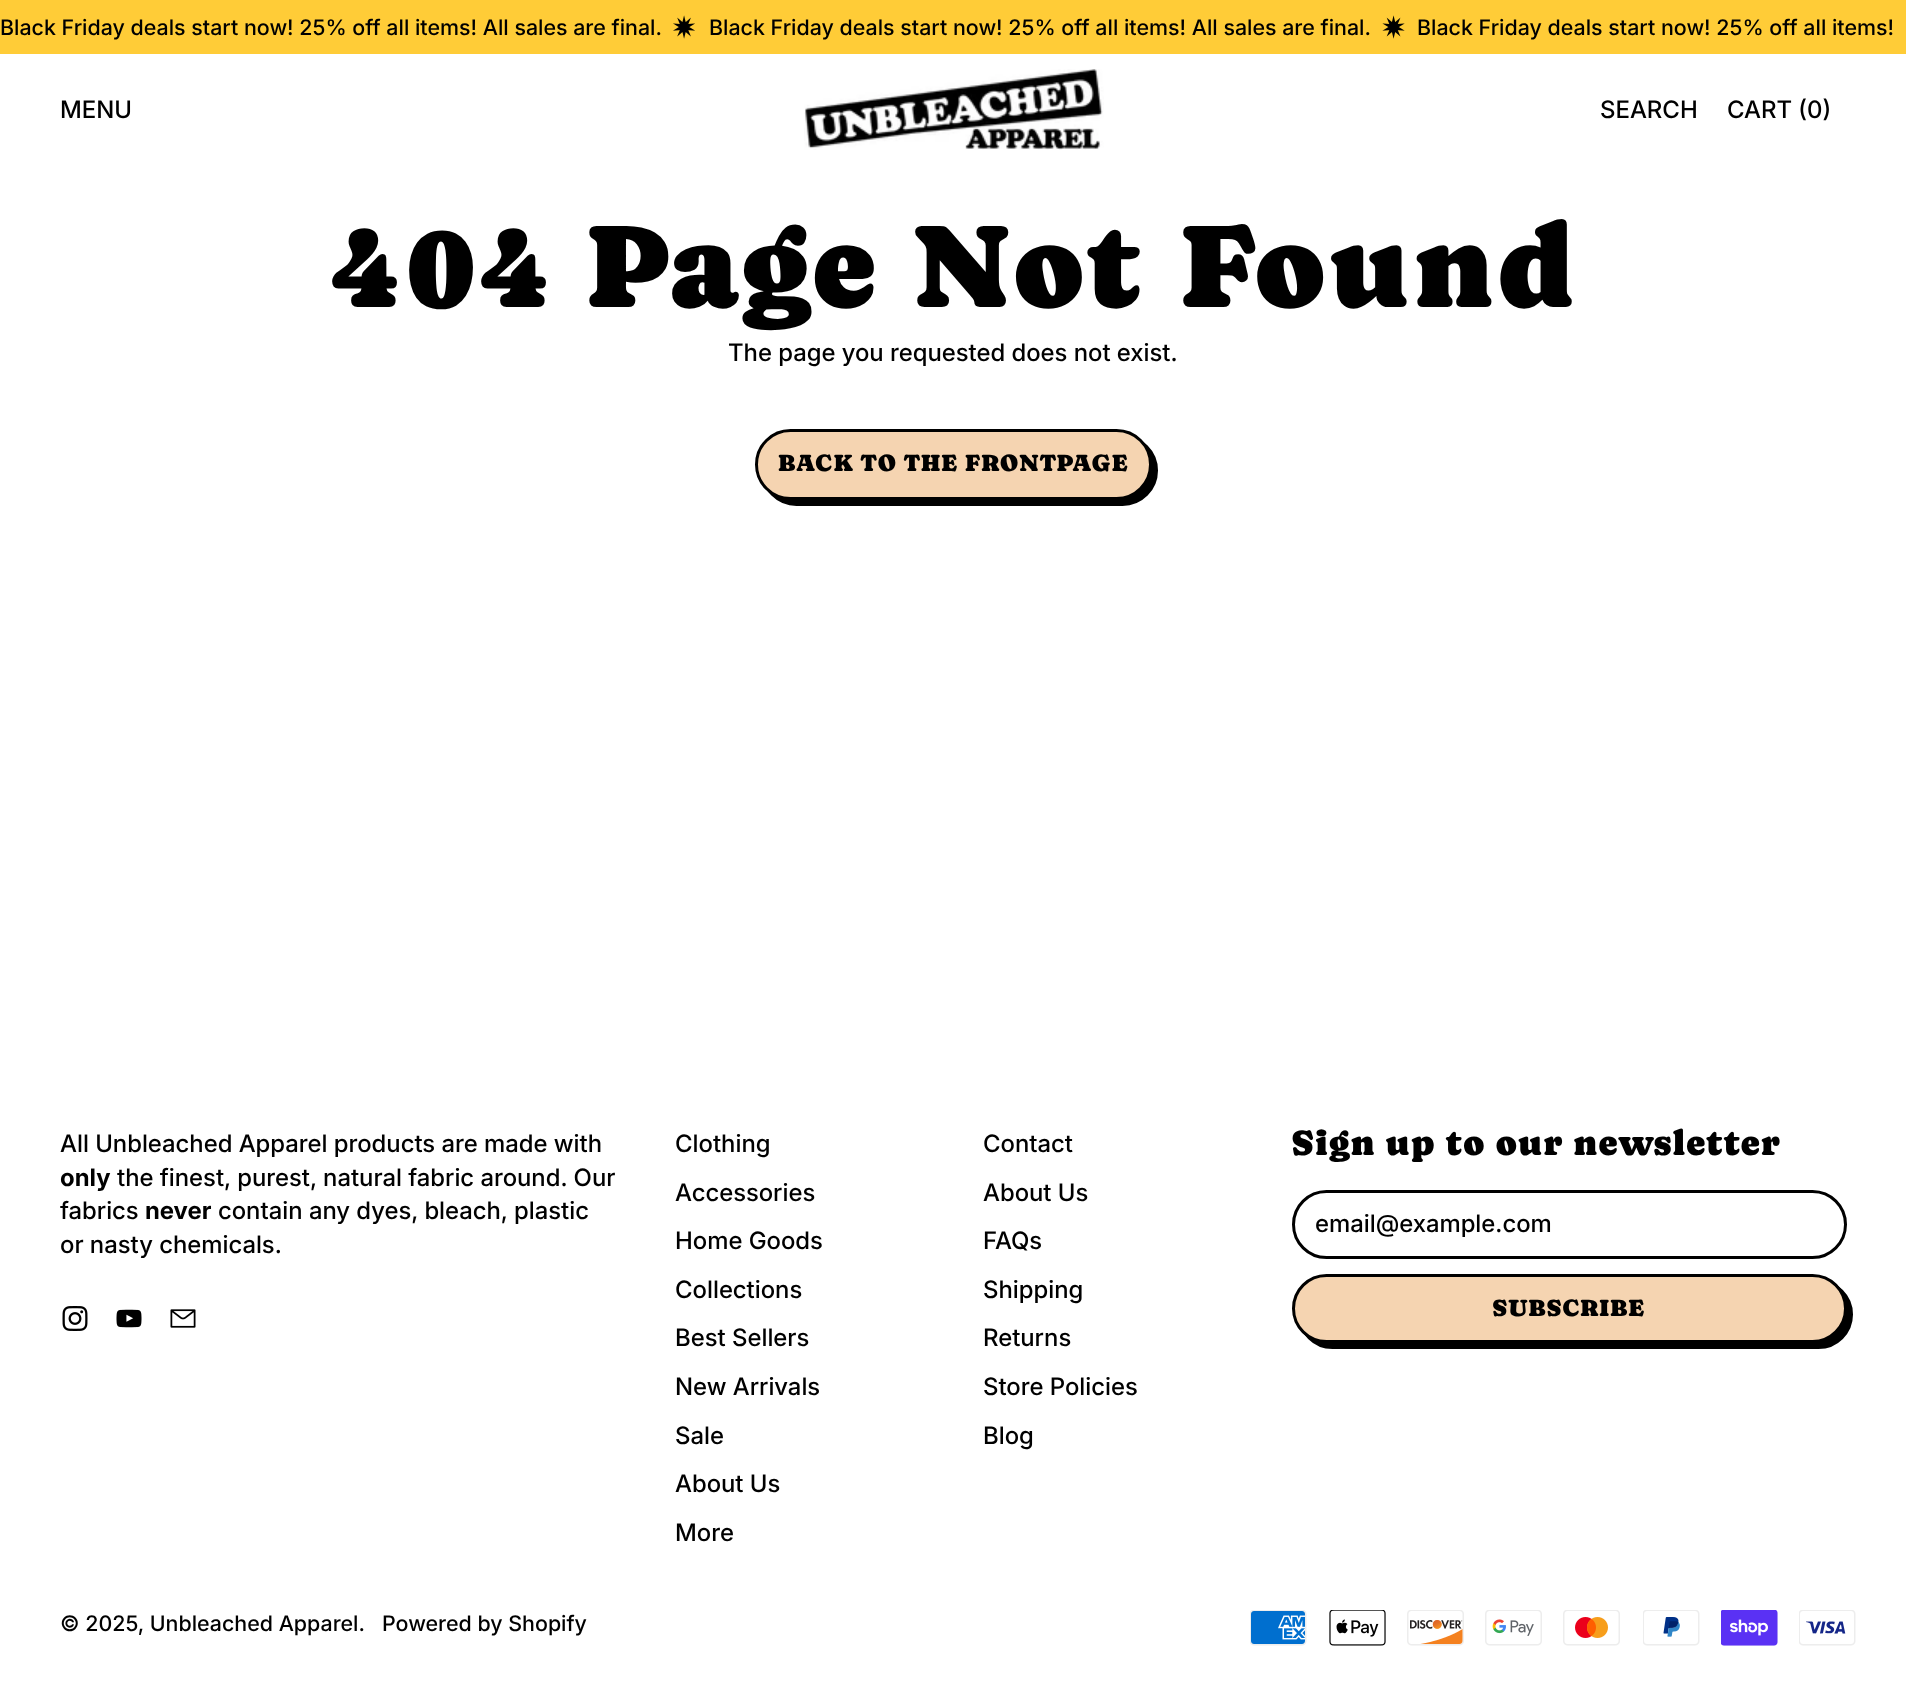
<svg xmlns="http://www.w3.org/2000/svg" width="1906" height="1700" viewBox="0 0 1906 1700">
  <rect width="100%" height="100%" fill="rgb(255,255,255)"/>
  <rect x="0" y="0" width="1906" height="54" fill="rgb(255,204,55)"/>
  <text x="0" y="35" font-family="Inter" font-size="21.4" font-weight="500" fill="rgb(0,0,0)">Black Friday deals start now! 25% off all items! All sales are final.</text>
  <image x="673" y="15" width="22" height="24" href="pic1.png"/>
  <text x="709" y="35" font-family="Inter" font-size="21.4" font-weight="500" fill="rgb(0,0,0)">Black Friday deals start now! 25% off all items! All sales are final.</text>
  <image x="1382" y="15" width="23" height="24" href="pic2.png"/>
  <text x="1417" y="35" font-family="Inter" font-size="21.4" font-weight="500" fill="rgb(0,0,0)">Black Friday deals start now! 25% off all items!</text>
  <text x="60" y="118" font-family="'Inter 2'" font-size="24" font-weight="500" fill="rgb(0,0,0)">MENU</text>
  <image x="804" y="69" width="300" height="81" href="pic3.png"/>
  <g font-family="'Inter 2'" font-size="24" font-weight="500" fill="rgb(0,0,0)">
    <text x="1600" y="118">SEARCH</text>
    <text x="1727" y="118">CART (0)</text>
  </g>
  <text x="330" y="307" font-family="Caprasimo" font-size="120" letter-spacing="3" fill="rgb(0,0,0)">404 Page Not Found</text>
  <text x="728" y="361" font-family="'Inter 2'" font-size="24" font-weight="500" fill="rgb(0,0,0)">The page you requested does not exist.</text>
  <rect x="762.5" y="436.5" width="394" height="68" rx="34" fill="rgb(0,0,0)" stroke="rgb(0,0,0)" stroke-width="3"/>
  <rect x="756.5" y="430.5" width="394" height="68" rx="34" fill="rgb(245,212,177)" stroke="rgb(0,0,0)" stroke-width="3"/>
  <text x="778" y="471" font-family="Caprasimo" font-size="24" letter-spacing="0.6" fill="rgb(0,0,0)">BACK TO THE FRONTPAGE</text>
  <text x="60" y="1152" font-family="'Inter 2'" font-size="24" font-weight="500" fill="rgb(0,0,0)">All Unbleached Apparel products are made with</text>
  <text x="60" y="1186" font-family="Inter" font-size="24" font-weight="bold" fill="rgb(0,0,0)">only</text>
  <g font-family="'Inter 2'" font-size="24" font-weight="500" fill="rgb(0,0,0)">
    <text x="117" y="1186">the finest, purest, natural fabric around. Our</text>
    <text x="60" y="1219">fabrics</text>
  </g>
  <text x="145" y="1219" font-family="Inter" font-size="24" font-weight="bold" fill="rgb(0,0,0)">never</text>
  <g font-family="'Inter 2'" font-size="24" font-weight="500" fill="rgb(0,0,0)">
    <text x="218" y="1219">contain any dyes, bleach, plastic</text>
    <text x="60" y="1253">or nasty chemicals.</text>
  </g>
  <image x="62" y="1306" width="26" height="25" href="pic4.png"/>
  <image x="116" y="1309" width="26" height="19" href="pic5.png"/>
  <image x="170" y="1309" width="26" height="19" href="pic6.png"/>
  <g font-family="'Inter 2'" font-size="24" font-weight="500" fill="rgb(0,0,0)">
    <text x="675" y="1152">Clothing</text>
    <text x="675" y="1201">Accessories</text>
    <text x="675" y="1249">Home Goods</text>
    <text x="675" y="1298">Collections</text>
    <text x="675" y="1346">Best Sellers</text>
    <text x="675" y="1395">New Arrivals</text>
    <text x="675" y="1444">Sale</text>
    <text x="675" y="1492">About Us</text>
    <text x="675" y="1541">More</text>
    <text x="983" y="1152">Contact</text>
    <text x="983" y="1201">About Us</text>
    <text x="983" y="1249">FAQs</text>
    <text x="983" y="1298">Shipping</text>
    <text x="983" y="1346">Returns</text>
    <text x="983" y="1395">Store Policies</text>
    <text x="983" y="1444">Blog</text>
  </g>
  <text x="1291" y="1155" font-family="Caprasimo" font-size="36" letter-spacing="0.9" fill="rgb(0,0,0)">Sign up to our newsletter</text>
  <rect x="1293.5" y="1191.5" width="552" height="66" rx="33" fill="none" stroke="rgb(0,0,0)" stroke-width="3"/>
  <text x="1315" y="1232" font-family="'Inter 2'" font-size="24" font-weight="500" fill="rgb(0,0,0)">email@example.com</text>
  <rect x="1299.5" y="1281.5" width="552" height="66" rx="33" fill="rgb(0,0,0)" stroke="rgb(0,0,0)" stroke-width="3"/>
  <rect x="1293.5" y="1275.5" width="552" height="66" rx="33" fill="rgb(245,212,177)" stroke="rgb(0,0,0)" stroke-width="3"/>
  <text x="1492" y="1316" font-family="Caprasimo" font-size="24" letter-spacing="0.6" fill="rgb(0,0,0)">SUBSCRIBE</text>
  <g font-family="Inter" font-size="21.4" font-weight="500" fill="rgb(0,0,0)">
    <text x="60" y="1631">© 2025, Unbleached Apparel.</text>
    <text x="382" y="1631">Powered by Shopify</text>
  </g>
  <image x="1250" y="1610" width="57" height="36" href="pic7.png"/>
  <image x="1329" y="1610" width="57" height="36" href="pic8.png"/>
  <image x="1407" y="1610" width="57" height="36" href="pic9.png"/>
  <image x="1485" y="1610" width="57" height="36" href="pic10.png"/>
  <image x="1563" y="1610" width="57" height="36" href="pic11.png"/>
  <image x="1643" y="1610" width="57" height="36" href="pic12.png"/>
  <image x="1721" y="1610" width="57" height="36" href="pic13.png"/>
  <image x="1799" y="1610" width="57" height="36" href="pic14.png"/>
</svg>
